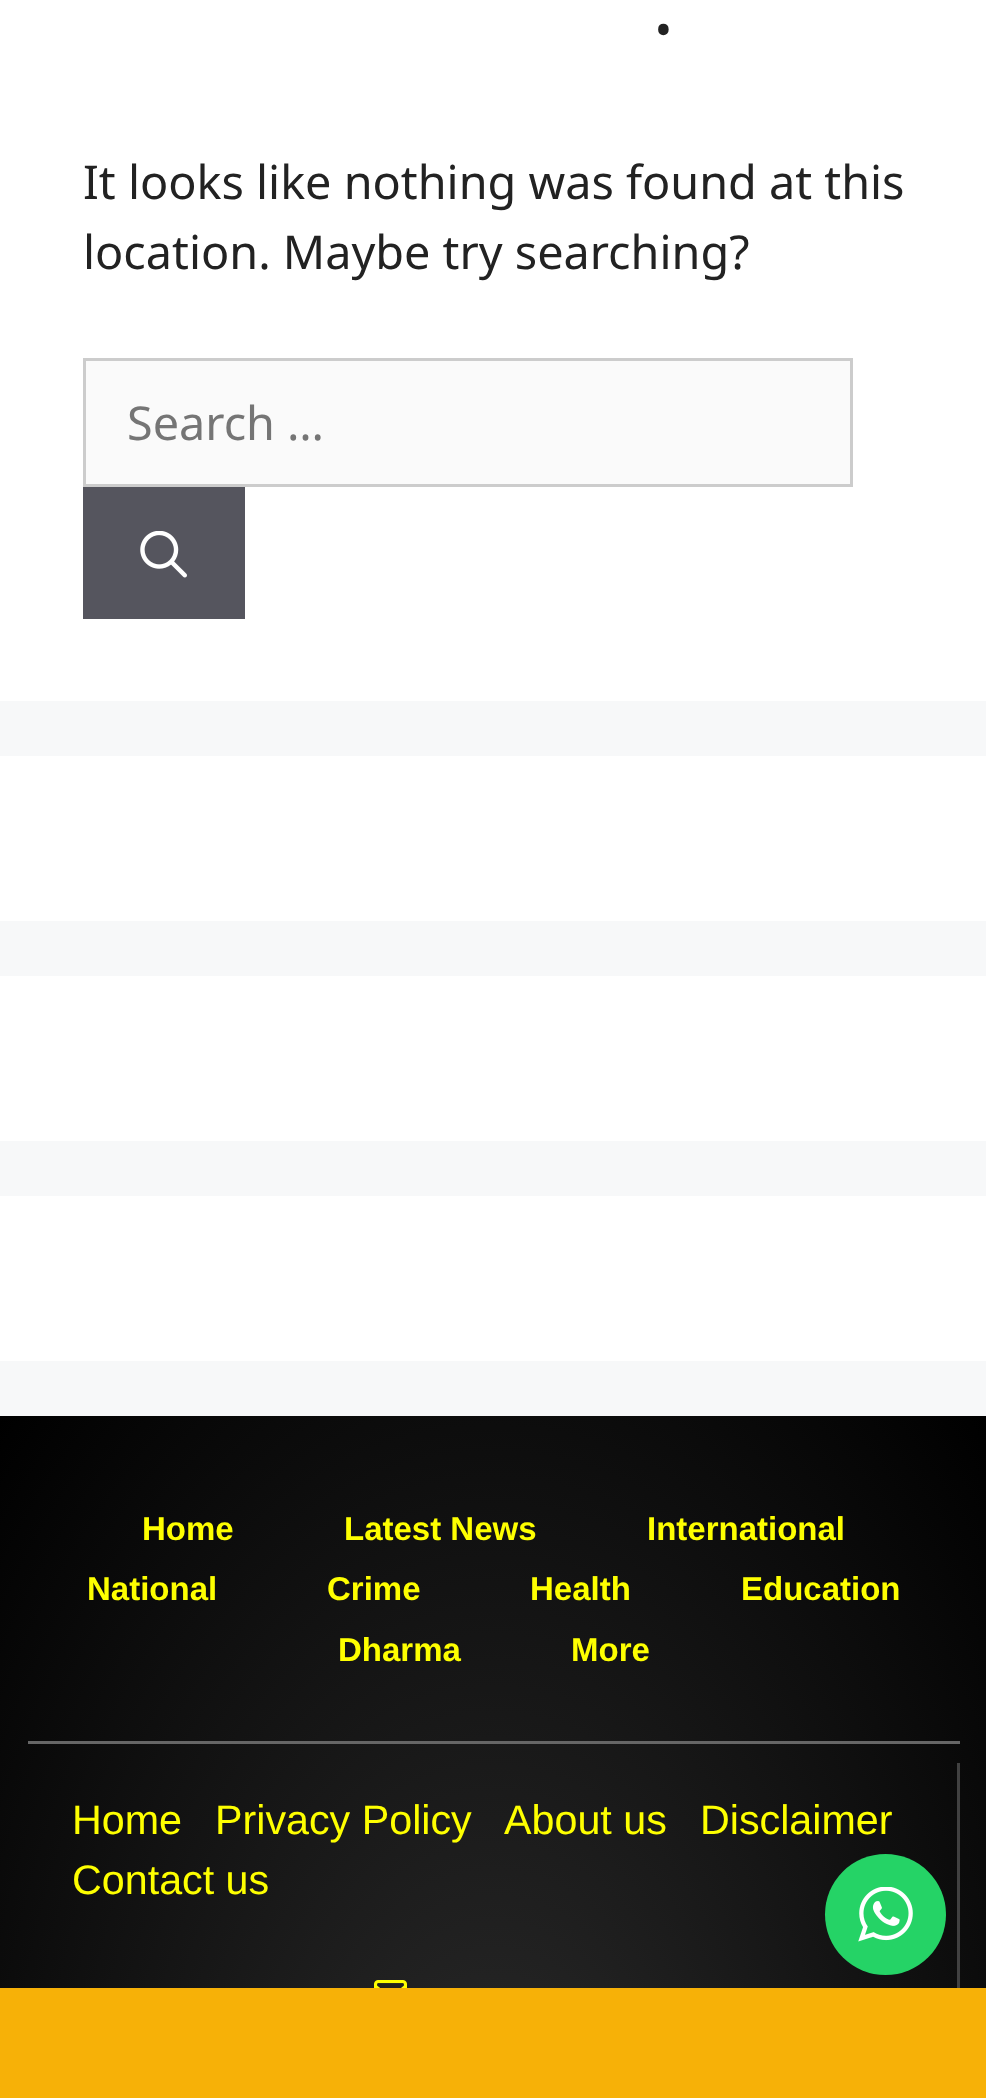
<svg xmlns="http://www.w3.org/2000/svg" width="986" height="2098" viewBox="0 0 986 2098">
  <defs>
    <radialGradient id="g1" gradientUnits="userSpaceOnUse" cx="0" cy="0" r="1" gradientTransform="matrix(698 0 0 1124 494 2211)"><stop offset="0" stop-color="rgb(43,43,43)"/><stop offset="1" stop-color="rgb(0,0,0)"/></radialGradient>
  </defs>
  <rect width="100%" height="100%" fill="rgb(247,248,249)"/>
  <rect x="0" y="0" width="986" height="701" fill="rgb(255,255,255)"/>
  <text x="652" y="34" font-family="Noto Sans" font-size="85" fill="rgb(34,34,34)">.</text>
  <g font-family="Noto Sans" font-size="46.75" fill="rgb(34,34,34)">
    <text>
      <tspan x="83" y="199">It looks like nothing was found at this</tspan>
      <tspan x="83" y="269">location. Maybe try searching?</tspan>
    </text>
  </g>
  <rect x="84.5" y="359.5" width="767" height="126" fill="rgb(250,250,250)" stroke="rgb(204,204,204)" stroke-width="3"/>
  <text x="127" y="440" font-family="Noto Sans" font-size="46.75" fill="rgb(117,117,117)">Search …</text>
  <rect x="83" y="487" width="162" height="132" fill="rgb(85,85,94)"/>
  <image x="140" y="531" width="47" height="47" href="pic1.png"/>
  <rect x="0" y="756" width="986" height="165" fill="rgb(255,255,255)"/>
  <rect x="0" y="976" width="986" height="165" fill="rgb(255,255,255)"/>
  <rect x="0" y="1196" width="986" height="165" fill="rgb(255,255,255)"/>
  <rect x="0" y="1416" width="986" height="572" fill="url(#g1)"/>
  <g font-family="Liberation Sans" font-size="33" font-weight="bold" fill="rgb(254,255,0)">
    <text x="142" y="1540">Home</text>
    <text x="344" y="1540">Latest News</text>
    <text x="647" y="1540">International</text>
    <text x="87" y="1600">National</text>
    <text x="327" y="1600">Crime</text>
    <text x="530" y="1600">Health</text>
    <text x="741" y="1600">Education</text>
    <text x="338" y="1661">Dharma</text>
    <text x="571" y="1661">More</text>
  </g>
  <rect x="28" y="1741" width="932" height="3" fill="rgb(102,102,102)"/>
  <rect x="957" y="1763" width="3" height="225" fill="rgb(65,65,65)"/>
  <g font-family="Liberation Sans" font-size="41.25" fill="rgb(254,255,0)">
    <text x="72" y="1834">Home</text>
    <text x="215" y="1834">Privacy Policy</text>
    <text x="504" y="1834">About us</text>
    <text x="700" y="1834">Disclaimer</text>
    <text x="72" y="1894">Contact us</text>
  </g>
  <image x="374" y="1980" width="33" height="8" href="pic2.png"/>
  <circle cx="885.5" cy="1914.5" r="60.5" fill="rgb(37,211,102)"/>
  <image x="858" y="1887" width="55" height="55" href="pic3.png"/>
  <rect x="0" y="1988" width="986" height="110" fill="rgb(247,177,7)"/>
</svg>
